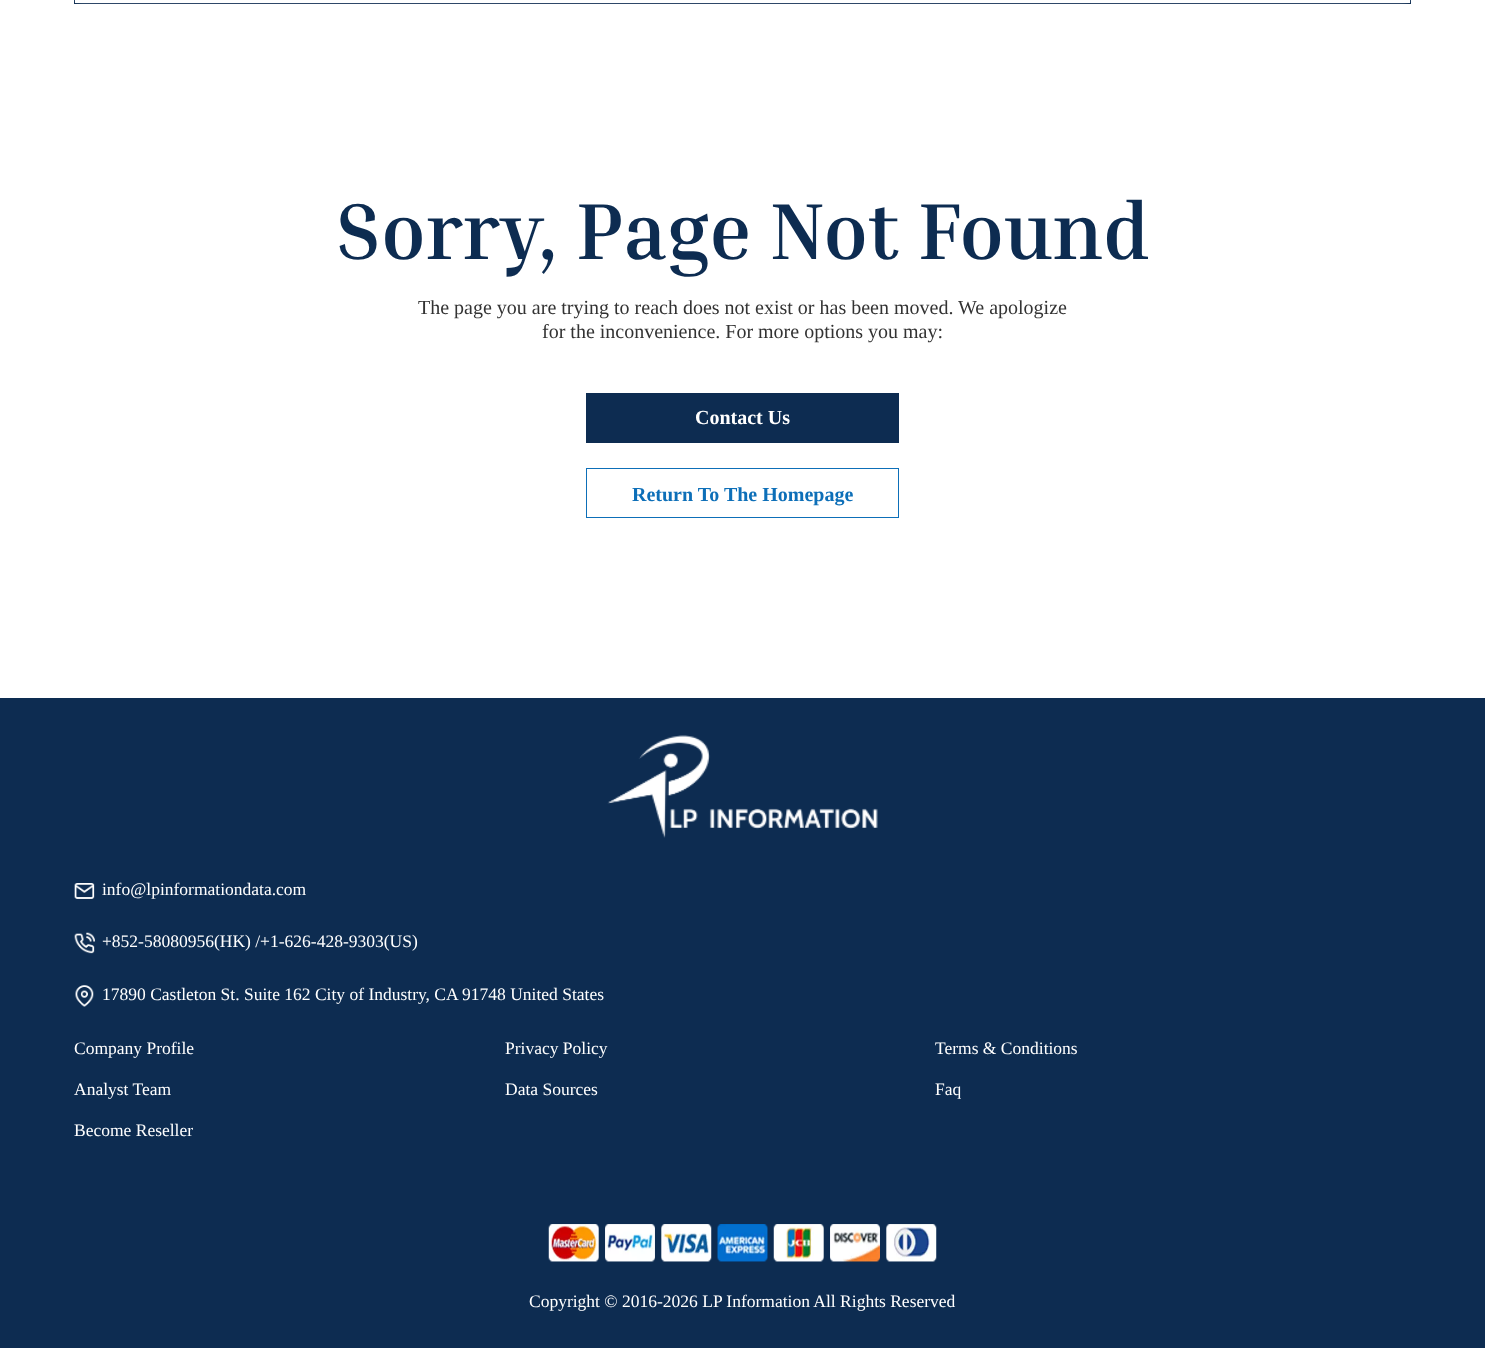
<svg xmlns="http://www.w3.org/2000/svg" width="1485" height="1348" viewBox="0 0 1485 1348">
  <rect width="100%" height="100%" fill="rgb(255,255,255)"/>
  <rect x="74.5" y="-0.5" width="1336" height="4" fill="none" stroke="rgb(13,44,81)"/>
  <rect x="75" y="-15" width="1335" height="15" rx="6" fill="rgb(255,255,255)" filter="blur(3px)"/>
  <text x="336" y="259" font-family="Inria Serif" font-size="80" font-weight="bold" fill="rgb(13,44,81)">Sorry, Page Not Found</text>
  <g font-family="Liberation Serif" font-size="20" fill="rgb(51,51,51)">
    <text x="418" y="314">The page you are trying to reach does not exist or has been moved. We apologize</text>
    <text x="542" y="338">for the inconvenience. For more options you may:</text>
  </g>
  <rect x="586" y="393" width="313" height="50" fill="rgb(13,44,81)"/>
  <text x="695" y="424" font-family="Liberation Serif" font-size="20" font-weight="bold" fill="rgb(255,255,255)">Contact Us</text>
  <rect x="586.5" y="468.5" width="312" height="49" fill="none" stroke="rgb(13,111,184)"/>
  <text x="632" y="501" font-family="Liberation Serif" font-size="20" font-weight="bold" fill="rgb(13,111,184)">Return To The Homepage</text>
  <rect x="0" y="698" width="1485" height="650" fill="rgb(13,44,81)"/>
  <image x="607" y="735" width="271" height="103" href="pic1.png"/>
  <image x="74" y="883" width="21" height="16" href="pic2.png"/>
  <text x="102" y="895" font-family="Liberation Serif" font-size="17.5" fill="rgb(255,255,255)">info@lpinformationdata.com</text>
  <image x="74" y="932" width="21" height="22" href="pic3.png"/>
  <text x="102" y="947" font-family="Liberation Serif" font-size="17.5" fill="rgb(255,255,255)">+852-58080956(HK) /+1-626-428-9303(US)</text>
  <image x="75" y="985" width="19" height="22" href="pic4.png"/>
  <g font-family="Liberation Serif" font-size="17.5" fill="rgb(255,255,255)">
    <text x="102" y="1000">17890 Castleton St. Suite 162 City of Industry, CA 91748 United States</text>
    <text x="74" y="1054">Company Profile</text>
    <text x="505" y="1054">Privacy Policy</text>
    <text x="935" y="1054">Terms &amp; Conditions</text>
    <text x="74" y="1095">Analyst Team</text>
    <text x="505" y="1095">Data Sources</text>
    <text x="935" y="1095">Faq</text>
    <text x="74" y="1136">Become Reseller</text>
  </g>
  <image x="548" y="1224" width="51" height="38" href="pic5.png"/>
  <image x="605" y="1224" width="50" height="38" href="pic6.png"/>
  <image x="661" y="1224" width="51" height="38" href="pic7.png"/>
  <image x="717" y="1224" width="51" height="38" href="pic8.png"/>
  <image x="773" y="1224" width="51" height="38" href="pic9.png"/>
  <image x="830" y="1224" width="50" height="38" href="pic10.png"/>
  <image x="886" y="1224" width="51" height="38" href="pic11.png"/>
  <text x="529" y="1307" font-family="Liberation Serif" font-size="17.5" fill="rgb(255,255,255)">Copyright © 2016-2026 LP Information All Rights Reserved</text>
</svg>
